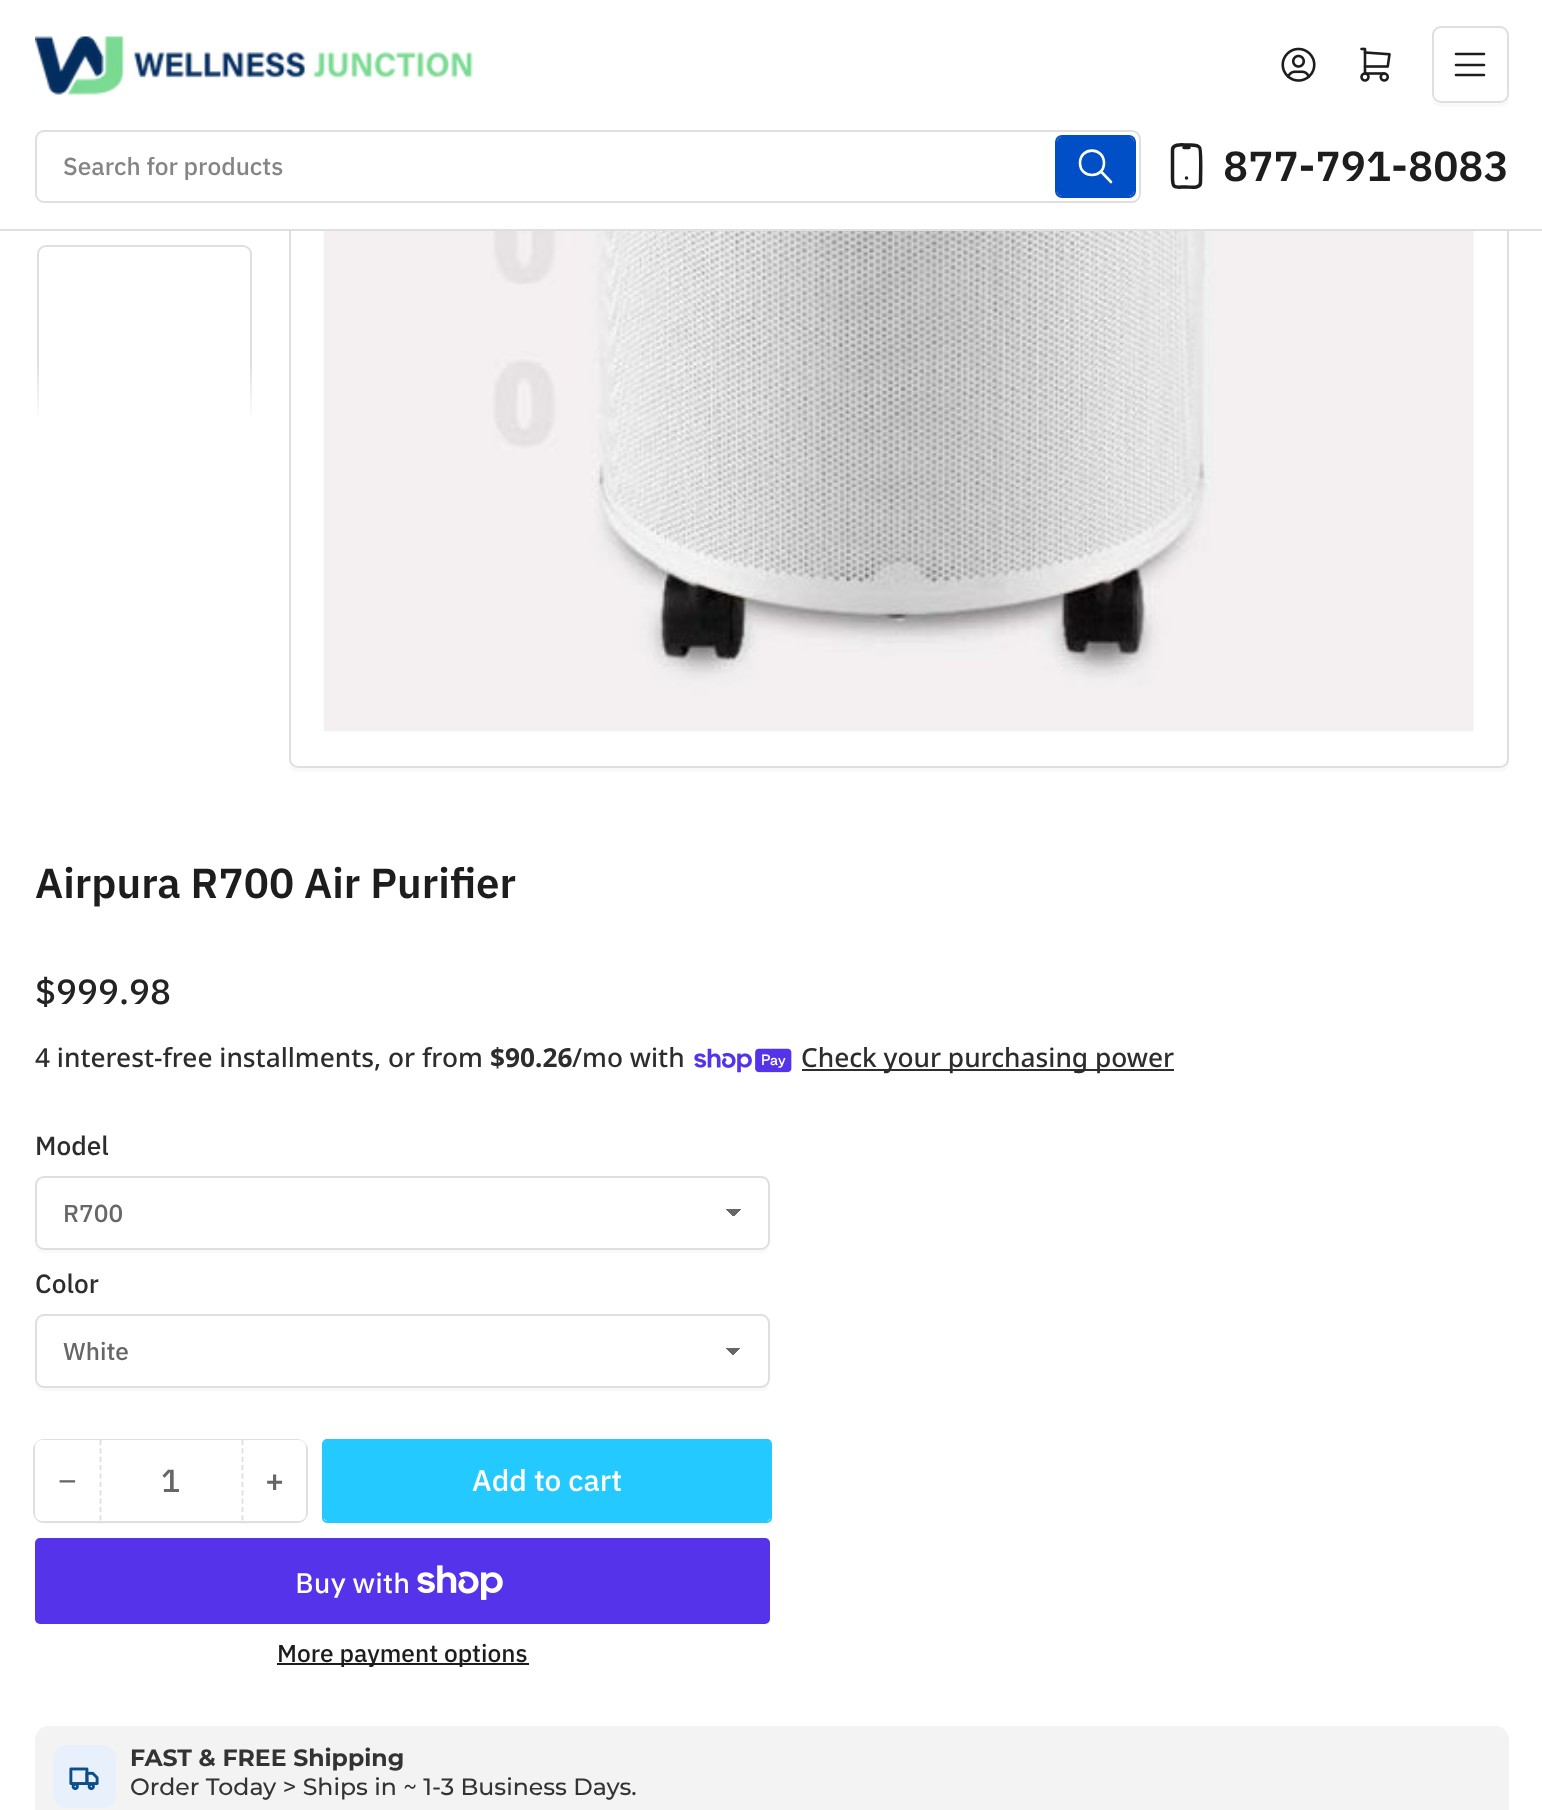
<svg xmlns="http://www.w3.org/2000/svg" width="1542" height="1810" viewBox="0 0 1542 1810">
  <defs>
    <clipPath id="clip1"><rect x="35" y="0" width="219" height="422"/></clipPath>
    <linearGradient id="g1" gradientUnits="userSpaceOnUse" x1="144" y1="422" x2="144" y2="361"><stop offset="0" stop-color="rgb(255,255,255)"/><stop offset="1" stop-color="rgb(255,255,255)" stop-opacity="0"/></linearGradient>
    <linearGradient id="g2" gradientUnits="userSpaceOnUse" x1="733" y1="1208" x2="742" y2="1217"><stop offset="0.5" stop-color="rgb(103,103,103)"/><stop offset="0.5" stop-color="rgb(255,255,255)"/></linearGradient>
    <linearGradient id="g3" gradientUnits="userSpaceOnUse" x1="725" y1="1217" x2="733" y2="1208"><stop offset="0.5" stop-color="rgb(255,255,255)"/><stop offset="0.5" stop-color="rgb(103,103,103)"/></linearGradient>
    <linearGradient id="g4" gradientUnits="userSpaceOnUse" x1="733" y1="1347" x2="742" y2="1355"><stop offset="0.5" stop-color="rgb(103,103,103)"/><stop offset="0.5" stop-color="rgb(255,255,255)"/></linearGradient>
    <linearGradient id="g5" gradientUnits="userSpaceOnUse" x1="725" y1="1355" x2="733" y2="1347"><stop offset="0.5" stop-color="rgb(255,255,255)"/><stop offset="0.5" stop-color="rgb(103,103,103)"/></linearGradient>
  </defs>
  <rect width="100%" height="100%" fill="rgb(255,255,255)"/>
  <path d="M289 762V763C289 768 293 772 298 772H1500C1505 772 1509 768 1509 763V-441L1508-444V760C1508 764 1505 768 1500 768H298C293 768 290 765 289 762Z" fill="rgb(249,249,249)"/>
  <rect x="290" y="-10" width="1218" height="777" rx="8" fill="rgb(255,255,255)" stroke="rgb(223,223,223)" stroke-width="2"/>
  <rect x="0" y="229" width="1542" height="2" fill="rgb(223,223,223)"/>
  <rect x="289" y="0" width="1220" height="229" fill="rgb(255,255,255)"/>
  <image x="35" y="36" width="438" height="59" href="pic1.png"/>
  <image x="1281" y="47" width="35" height="35" href="pic2.png"/>
  <image x="1360" y="47" width="31" height="35" href="pic3.png"/>
  <path d="M1432 97V98C1432 103 1436 107 1441 107H1500C1505 107 1509 103 1509 98V39L1508 36V94C1508 99 1505 103 1500 103H1440C1436 103 1433 101 1432 97Z" fill="rgb(249,249,249)"/>
  <rect x="1433" y="27" width="75" height="75" rx="8" fill="none" stroke="rgb(223,223,223)" stroke-width="2"/>
  <path d="M1456 54H1484M1456 65H1484M1456 75H1484" fill="none" stroke="rgb(29,29,29)" stroke-width="2.6" stroke-linecap="round" stroke-linejoin="round"/>
  <rect x="36" y="131" width="1104" height="71" rx="8" fill="none" stroke="rgb(223,223,223)" stroke-width="2"/>
  <text x="63" y="175" font-family="IBM Plex Sans" font-size="24.5" font-weight="500" fill="rgb(133,133,133)">Search for products</text>
  <rect x="1056" y="136" width="79" height="61" rx="6" fill="none" stroke="rgb(0,79,199)" stroke-width="2"/>
  <rect x="1057" y="137" width="77" height="59" rx="5" fill="rgb(0,79,199)"/>
  <path d="M1080 163C1080 179 1104 179 1104 163C1104 146.5 1080 146.5 1080 163M1111 182L1101 171.5" fill="none" stroke="rgb(255,255,255)" stroke-width="2.6" stroke-linecap="round" stroke-linejoin="round"/>
  <path d="M1172.5 150C1172.5 143.5 1182.5 145 1186.5 145C1190 145 1197.5 144 1199.5 147.5C1201.5 150 1200.5 177.5 1200.5 182.5C1200.5 189 1190.5 187 1186.5 187C1174.5 187 1172.5 189.5 1172.5 177ZM1184 147.5H1189M1186.5 178H1186.5" fill="none" stroke="rgb(29,29,29)" stroke-width="3.5" stroke-linecap="round" stroke-linejoin="round"/>
  <text x="1223" y="181" font-family="IBM Plex Sans" font-size="42" font-weight="600" fill="rgb(29,29,29)">877-791-8083</text>
  <g clip-path="url(#clip1)">
    <rect x="38" y="246" width="213" height="212" rx="8" fill="none" stroke="rgb(223,223,223)" stroke-width="2"/>
  </g>
  <rect x="37" y="366" width="215" height="56" fill="url(#g1)"/>
  <image x="323" y="231" width="1151" height="501" href="pic4.png"/>
  <text x="35" y="898" font-family="IBM Plex Sans" font-size="42" font-weight="600" fill="rgb(29,29,29)">Airpura R700 Air Purifier</text>
  <text x="35" y="1004" font-family="IBM Plex Sans" font-size="35" font-weight="500" fill="rgb(35,35,35)">$999.98</text>
  <text x="35" y="1067" font-family="Noto Sans" font-size="26.25" font-weight="500" fill="rgb(45,45,45)">4 interest-free installments, or from</text>
  <text x="490" y="1067" font-family="Noto Sans" font-size="26.25" font-weight="bold" fill="rgb(45,45,45)">$90.26</text>
  <text x="572" y="1067" font-family="Noto Sans" font-size="26.25" font-weight="500" fill="rgb(45,45,45)">/mo with</text>
  <image x="694" y="1048" width="98" height="25" href="pic5.png"/>
  <rect x="802" y="1069" width="372" height="2" fill="rgb(45,45,45)"/>
  <text x="801" y="1067" font-family="Noto Sans" font-size="26.25" font-weight="500" fill="rgb(45,45,45)">Check your purchasing power</text>
  <text x="35" y="1155" font-family="IBM Plex Sans" font-size="26.25" font-weight="500" fill="rgb(45,45,45)">Model</text>
  <path d="M35 1241C35 1247 37 1253 44 1253H761C768 1253 770 1247 770 1241C770 1246 766 1250 761 1250H44C39 1250 35 1246 35 1241Z" fill="rgb(249,249,249)"/>
  <rect x="733" y="1209" width="8" height="7" fill="url(#g2)"/>
  <rect x="726" y="1209" width="7" height="9" fill="url(#g3)"/>
  <rect x="36" y="1177" width="733" height="72" rx="8" fill="none" stroke="rgb(223,223,223)" stroke-width="2"/>
  <text x="63" y="1222" font-family="IBM Plex Sans" font-size="24.5" font-weight="500" fill="rgb(103,103,103)">R700</text>
  <text x="35" y="1293" font-family="IBM Plex Sans" font-size="26.25" font-weight="500" fill="rgb(45,45,45)">Color</text>
  <path d="M35 1379C35 1385 37 1391 44 1391H761C768 1391 770 1385 770 1379C770 1384 766 1388 761 1388H44C39 1388 35 1384 35 1379Z" fill="rgb(249,249,249)"/>
  <rect x="733" y="1348" width="9" height="7" fill="url(#g4)"/>
  <rect x="725" y="1348" width="8" height="7" fill="url(#g5)"/>
  <rect x="36" y="1315" width="733" height="72" rx="8" fill="none" stroke="rgb(223,223,223)" stroke-width="2"/>
  <text x="63" y="1360" font-family="IBM Plex Sans" font-size="24.5" font-weight="500" fill="rgb(103,103,103)">White</text>
  <path d="M35 1512V1515C35 1520 39 1524 44 1524H297C302 1524 306 1520 306 1515V1514C305 1518 302 1521 298 1521H44C39 1521 35 1517 35 1512Z" fill="rgb(249,249,249)"/>
  <rect x="34" y="1440" width="273" height="82" rx="10" fill="none" stroke="rgb(223,223,223)" stroke-width="2"/>
  <rect x="35" y="1440" width="271" height="81" rx="9" fill="rgb(255,255,255)"/>
  <rect x="35" y="1440" width="65" height="81" rx="7" fill="rgb(255,255,255)"/>
  <text x="58" y="1492" font-family="Liberation Sans" font-size="32" fill="rgb(103,103,103)">−</text>
  <rect x="243" y="1440" width="63" height="81" rx="7" fill="rgb(255,255,255)"/>
  <path d="M242.5 1440V1521" fill="none" stroke="rgb(223,223,223)" stroke-width="1.8" stroke-dasharray="5.25 3.12"/>
  <path d="M100.5 1440V1521" fill="none" stroke="rgb(223,223,223)" stroke-width="1.8" stroke-dasharray="5.25 3.12"/>
  <g font-family="IBM Plex Sans" font-size="32" font-weight="500" fill="rgb(103,103,103)">
    <text x="161" y="1492">1</text>
    <text x="265" y="1492">+</text>
  </g>
  <rect x="323" y="1440" width="448" height="82" rx="4" fill="none" stroke="rgb(35,201,255)" stroke-width="2"/>
  <rect x="324" y="1440" width="446" height="81" rx="4" fill="rgb(35,201,255)"/>
  <text x="472" y="1491" font-family="IBM Plex Sans" font-size="29.75" font-weight="500" fill="rgb(255,255,255)">Add to cart</text>
  <rect x="35" y="1538" width="735" height="86" rx="5" fill="rgb(84,51,235)"/>
  <text x="295" y="1593" font-family="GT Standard" font-size="28" font-weight="500" fill="rgb(255,255,255)">Buy with</text>
  <image x="417" y="1565" width="86" height="35" href="pic6.png"/>
  <rect x="277" y="1663" width="252" height="2" fill="rgb(29,29,29)"/>
  <text x="277" y="1662" font-family="IBM Plex Sans" font-size="24.5" font-weight="500" fill="rgb(29,29,29)">More payment options</text>
  <rect x="35" y="1726" width="1474" height="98" rx="14" fill="rgb(243,243,243)"/>
  <rect x="53" y="1745" width="63" height="63" rx="14" fill="rgb(231,240,251)"/>
  <image x="69" y="1767" width="30" height="24" href="pic7.png"/>
  <text x="130" y="1766" font-family="Montserrat" font-size="23.6" font-weight="bold" fill="rgb(51,51,51)">FAST &amp; FREE Shipping</text>
  <text x="130" y="1795" font-family="Montserrat" font-size="23.6" font-weight="500" fill="rgb(51,51,51)">Order Today &gt; Ships in ~ 1-3 Business Days.</text>
</svg>
